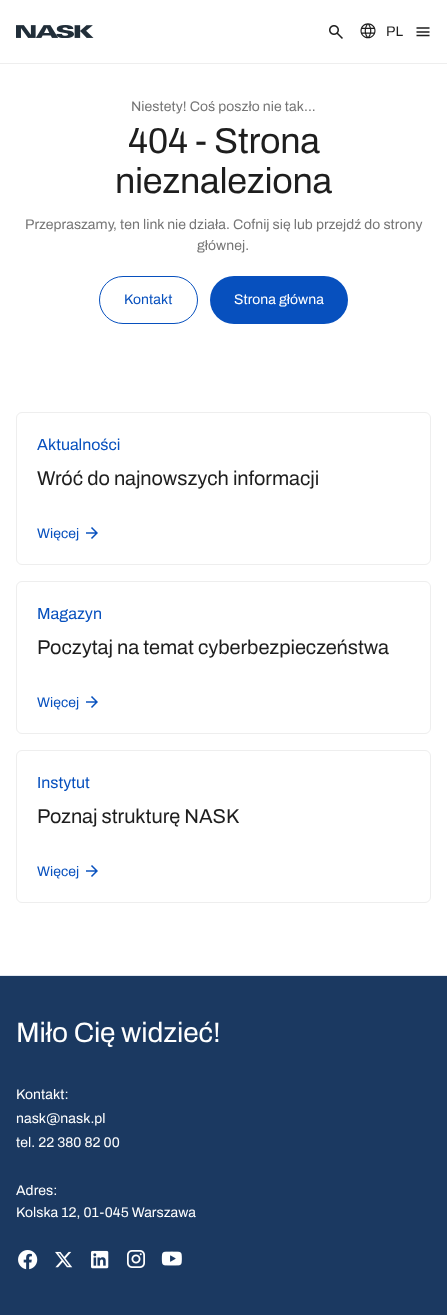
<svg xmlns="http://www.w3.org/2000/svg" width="447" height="1315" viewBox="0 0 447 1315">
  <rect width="100%" height="100%" fill="rgb(255,255,255)"/>
  <rect x="0" y="63" width="447" height="1" fill="rgb(238,238,238)"/>
  <image x="16" y="25" width="78" height="13" href="pic1.png"/>
  <image x="329" y="25" width="14" height="14" href="pic2.png"/>
  <image x="360" y="23" width="16" height="16" href="pic3.png"/>
  <text x="386" y="36" font-family="Archivo" font-size="14" letter-spacing="0.07" fill="rgb(30,30,30)">PL</text>
  <path d="M416.5 28H429.5M416.5 32H429.5M416.5 35.5H429.5" fill="none" stroke="rgb(30,30,30)" stroke-width="1.4"/>
  <text x="131" y="111" font-family="Archivo" font-size="14" letter-spacing="0.07" fill="rgb(117,117,117)">Niestety! Coś poszło nie tak...</text>
  <g font-family="Archivo" font-size="36" letter-spacing="-0.25" fill="rgb(30,30,30)">
    <text x="128" y="153">404 - Strona</text>
    <text x="115" y="193">nieznaleziona</text>
  </g>
  <g font-family="Archivo" font-size="14" letter-spacing="0.07" fill="rgb(117,117,117)">
    <text x="25" y="229">Przepraszamy, ten link nie działa. Cofnij się lub przejdź do strony</text>
    <text x="197" y="250">głównej.</text>
  </g>
  <rect x="99.5" y="276.5" width="98" height="47" rx="23.5" fill="none" stroke="rgb(7,80,190)"/>
  <text x="124" y="304" font-family="Archivo" font-size="14" letter-spacing="0.07" fill="rgb(7,80,190)">Kontakt</text>
  <rect x="210" y="276" width="138" height="48" rx="24" fill="rgb(7,80,190)"/>
  <text x="234" y="304" font-family="Archivo" font-size="14" letter-spacing="0.07" fill="rgb(255,255,255)">Strona główna</text>
  <rect x="16.5" y="412.5" width="414" height="152" rx="5.5" fill="none" stroke="rgb(238,238,238)"/>
  <text x="37" y="450" font-family="Archivo" font-size="16" fill="rgb(7,80,190)">Aktualności</text>
  <text x="37" y="485" font-family="Archivo" font-size="20" letter-spacing="-0.05" fill="rgb(30,30,30)">Wróć do najnowszych informacji</text>
  <text x="37" y="538" font-family="Archivo" font-size="14" letter-spacing="0.07" fill="rgb(7,80,190)">Więcej</text>
  <image x="86" y="527" width="12" height="12" href="pic4.png"/>
  <rect x="16.5" y="581.5" width="414" height="152" rx="5.5" fill="none" stroke="rgb(238,238,238)"/>
  <text x="37" y="619" font-family="Archivo" font-size="16" fill="rgb(7,80,190)">Magazyn</text>
  <text x="37" y="654" font-family="Archivo" font-size="20" letter-spacing="-0.05" fill="rgb(30,30,30)">Poczytaj na temat cyberbezpieczeństwa</text>
  <text x="37" y="707" font-family="Archivo" font-size="14" letter-spacing="0.07" fill="rgb(7,80,190)">Więcej</text>
  <image x="86" y="696" width="12" height="12" href="pic4.png"/>
  <rect x="16.5" y="750.5" width="414" height="152" rx="5.5" fill="none" stroke="rgb(238,238,238)"/>
  <text x="37" y="788" font-family="Archivo" font-size="16" fill="rgb(7,80,190)">Instytut</text>
  <text x="37" y="823" font-family="Archivo" font-size="20" letter-spacing="-0.05" fill="rgb(30,30,30)">Poznaj strukturę NASK</text>
  <text x="37" y="876" font-family="Archivo" font-size="14" letter-spacing="0.07" fill="rgb(7,80,190)">Więcej</text>
  <image x="86" y="865" width="12" height="12" href="pic4.png"/>
  <rect x="0" y="976" width="447" height="339" fill="rgb(27,57,97)"/>
  <rect x="0" y="975" width="447" height="1" fill="rgb(226,232,240)"/>
  <text x="16" y="1042" font-family="Archivo" font-size="28" letter-spacing="-0.1" fill="rgb(255,255,255)">Miło Cię widzieć!</text>
  <g font-family="Archivo" font-size="14" letter-spacing="0.07" fill="rgb(255,255,255)">
    <text>
      <tspan x="16" y="1099">Kontakt:</tspan>
      <tspan x="16" y="1123">nask@nask.pl</tspan>
      <tspan x="16" y="1147">tel. 22 380 82 00</tspan>
    </text>
    <text>
      <tspan x="16" y="1195">Adres:</tspan>
      <tspan x="16" y="1217">Kolska 12, 01-045 Warszawa</tspan>
    </text>
  </g>
  <image x="18" y="1250" width="20" height="20" href="pic5.png"/>
  <image x="55" y="1251" width="18" height="17" href="pic6.png"/>
  <image x="91" y="1250" width="18" height="19" href="pic7.png"/>
  <image x="127" y="1250" width="18" height="18" href="pic8.png"/>
  <image x="161" y="1251" width="21" height="15" href="pic9.png"/>
</svg>
